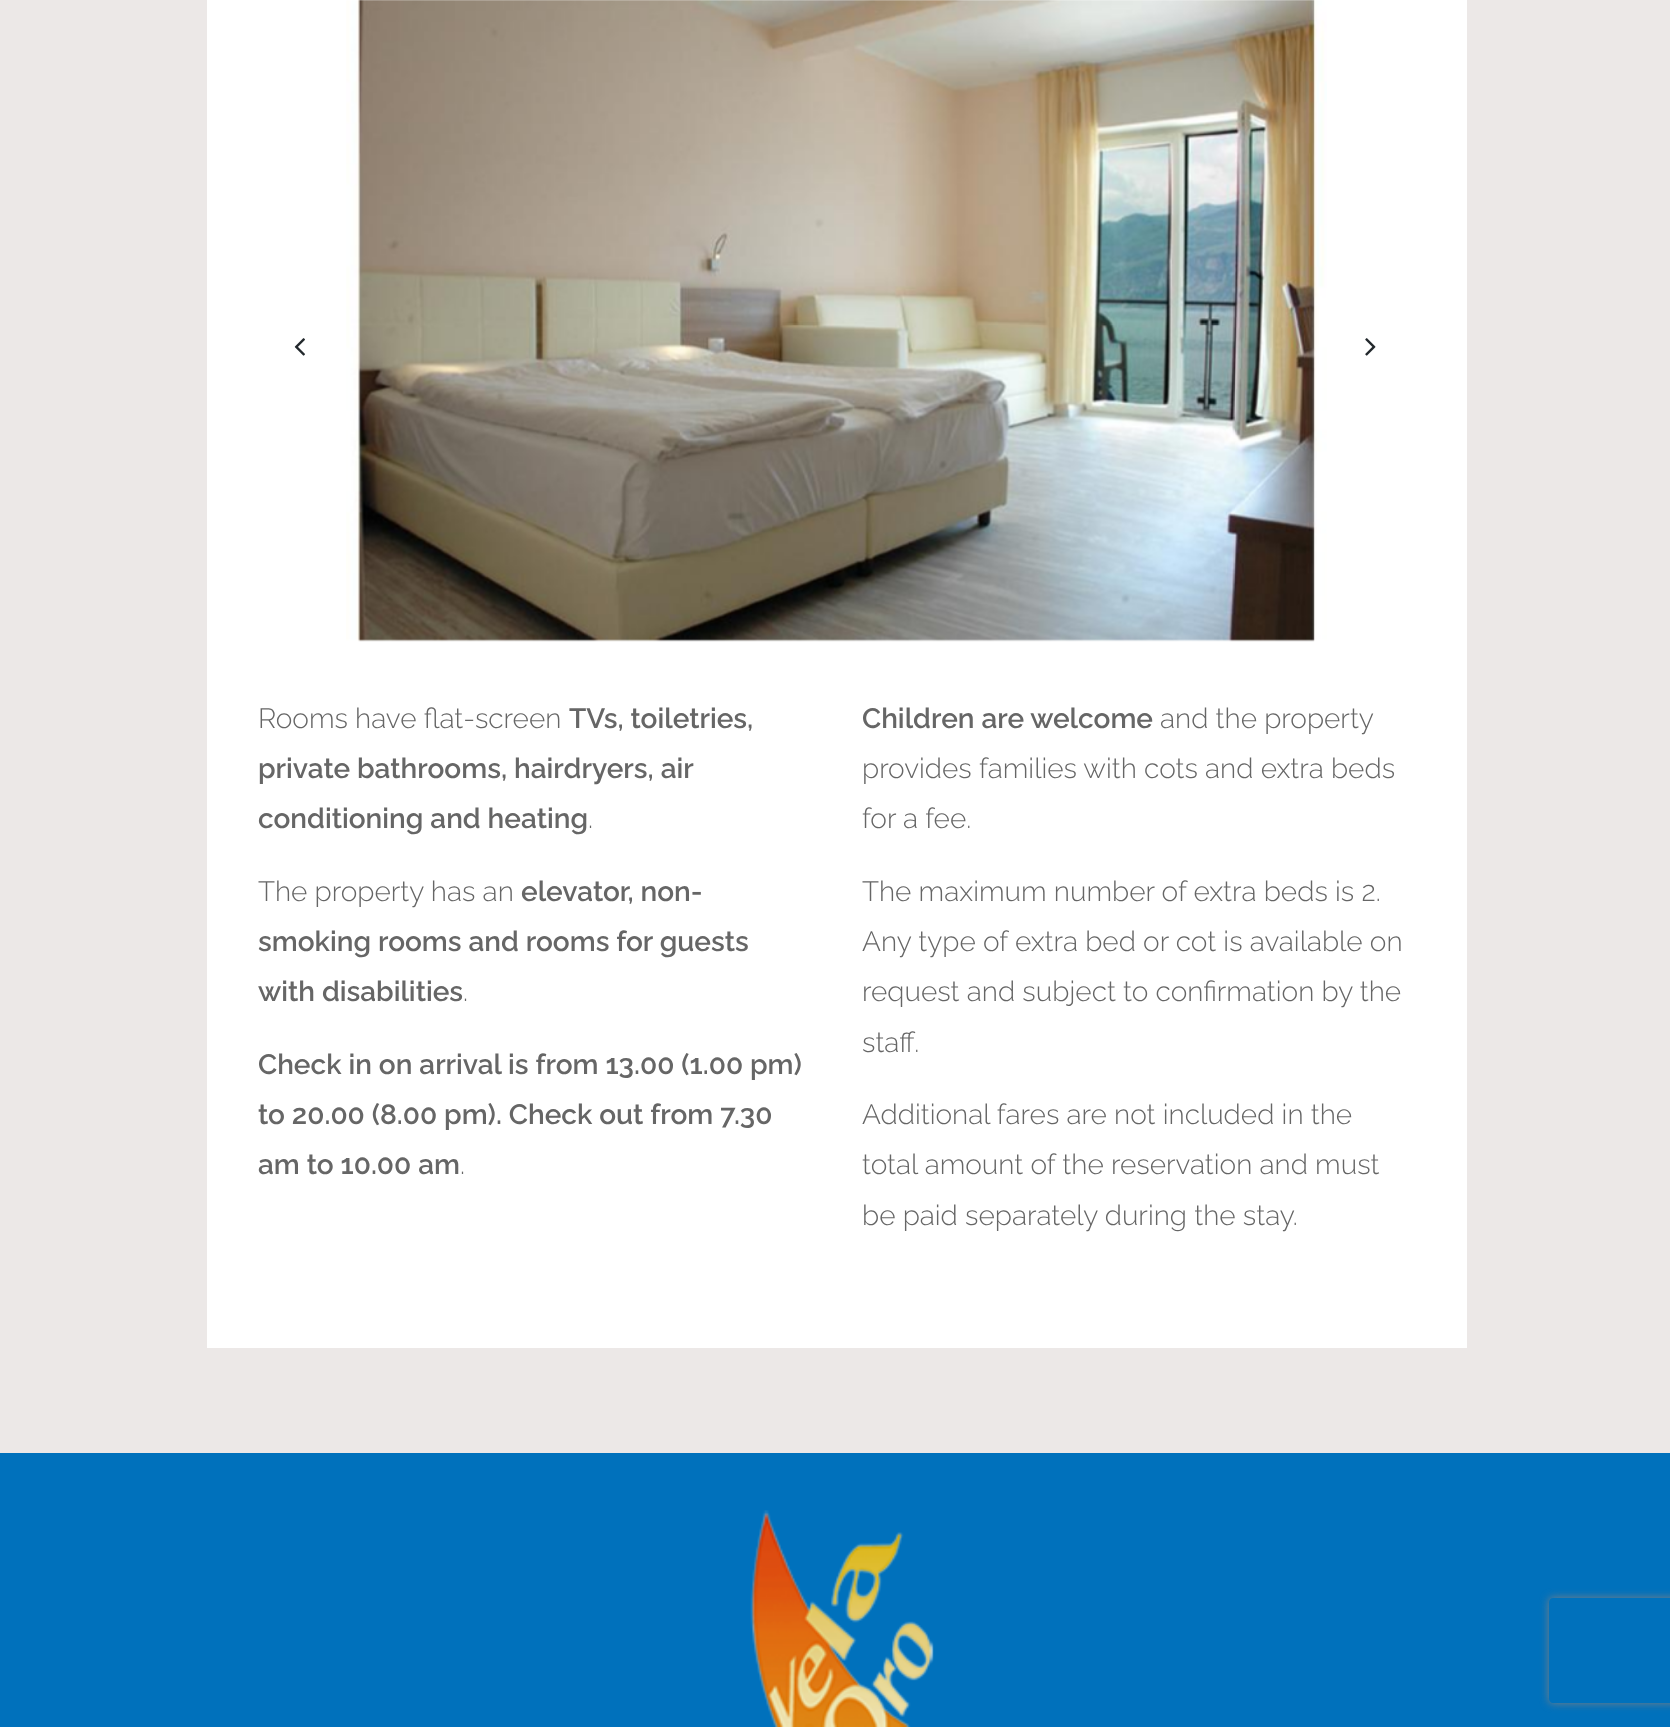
<svg xmlns="http://www.w3.org/2000/svg" width="1670" height="1727" viewBox="0 0 1670 1727">
  <defs>
    <clipPath id="clip1"><path d="M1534 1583H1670V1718H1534ZM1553 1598H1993C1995 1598 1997 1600 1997 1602V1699C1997 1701 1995 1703 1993 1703H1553C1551 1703 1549 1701 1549 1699V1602C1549 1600 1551 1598 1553 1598Z" clip-rule="evenodd"/></clipPath>
  </defs>
  <rect width="100%" height="100%" fill="rgb(236,232,231)"/>
  <rect x="207" y="0" width="1260" height="1348" fill="rgb(255,255,255)"/>
  <image x="346" y="0" width="981" height="642" href="pic1.png"/>
  <image x="294" y="338" width="11" height="18" href="pic2.png"/>
  <image x="1365" y="338" width="11" height="18" href="pic3.png"/>
  <text x="258" y="728" font-family="Raleway" font-size="28" font-weight="300" fill="rgb(102,102,102)">Rooms have flat-screen</text>
  <g font-family="Raleway" font-size="28" font-weight="600" fill="rgb(102,102,102)">
    <text x="569" y="728">TVs, toiletries,</text>
    <text>
      <tspan x="258" y="778">private bathrooms, hairdryers, air</tspan>
      <tspan x="258" y="828">conditioning and heating</tspan>
    </text>
  </g>
  <text x="588" y="828" font-family="Raleway" font-size="28" font-weight="300" fill="rgb(102,102,102)">.</text>
  <text x="862" y="728" font-family="Raleway" font-size="28" font-weight="600" fill="rgb(102,102,102)">Children are welcome</text>
  <g font-family="Raleway" font-size="28" font-weight="300" fill="rgb(102,102,102)">
    <text x="1160" y="728">and the property</text>
    <text>
      <tspan x="862" y="778">provides families with cots and extra beds</tspan>
      <tspan x="862" y="828">for a fee.</tspan>
    </text>
    <text x="258" y="901">The property has an</text>
  </g>
  <g font-family="Raleway" font-size="28" font-weight="600" fill="rgb(102,102,102)">
    <text x="521" y="901">elevator, non-</text>
    <text>
      <tspan x="258" y="951">smoking rooms and rooms for guests</tspan>
      <tspan x="258" y="1001">with disabilities</tspan>
    </text>
  </g>
  <g font-family="Raleway" font-size="28" font-weight="300" fill="rgb(102,102,102)">
    <text x="463" y="1001">.</text>
    <text>
      <tspan x="862" y="901">The maximum number of extra beds is 2.</tspan>
      <tspan x="862" y="951">Any type of extra bed or cot is available on</tspan>
      <tspan x="862" y="1001">request and subject to confirmation by the</tspan>
      <tspan x="862" y="1052">staff.</tspan>
    </text>
  </g>
  <g font-family="Raleway" font-size="28" font-weight="600" fill="rgb(102,102,102)">
    <text>
      <tspan x="258" y="1074">Check in on arrival is from 13.00 (1.00 pm)</tspan>
      <tspan x="258" y="1124">to 20.00 (8.00 pm). Check out from 7.30</tspan>
      <tspan x="258" y="1174">am to 10.00 am</tspan>
    </text>
  </g>
  <g font-family="Raleway" font-size="28" font-weight="300" fill="rgb(102,102,102)">
    <text x="460" y="1174">.</text>
    <text>
      <tspan x="862" y="1124">Additional fares are not included in the</tspan>
      <tspan x="862" y="1174">total amount of the reservation and must</tspan>
      <tspan x="862" y="1225">be paid separately during the stay.</tspan>
    </text>
  </g>
  <rect x="0" y="1453" width="1670" height="274" fill="rgb(0,113,188)"/>
  <image x="750" y="1510" width="184" height="217" href="pic4.png"/>
  <g clip-path="url(#clip1)">
    <rect x="1549" y="1598" width="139" height="105" rx="4" fill="rgb(128,128,128)" filter="blur(4.5px)"/>
  </g>
</svg>
